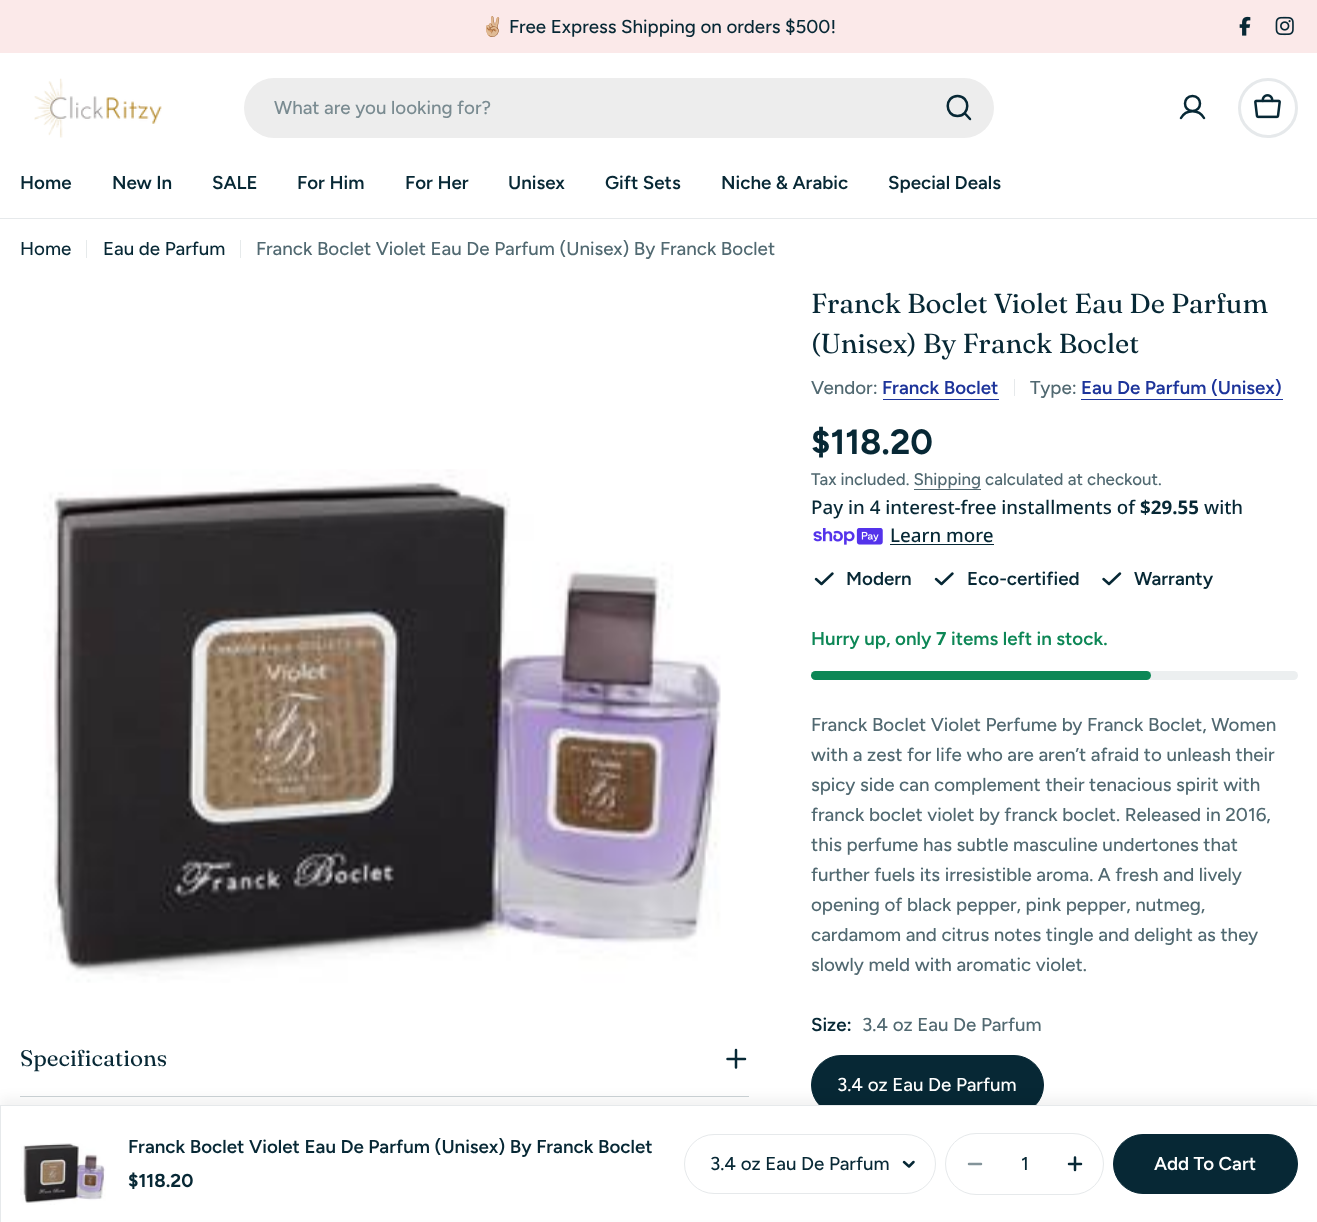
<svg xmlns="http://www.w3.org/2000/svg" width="1317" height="1222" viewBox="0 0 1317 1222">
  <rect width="100%" height="100%" fill="rgb(255,255,255)"/>
  <rect x="0" y="0" width="1317" height="53" fill="rgb(251,233,233)"/>
  <text x="481" y="33" font-family="Noto Color Emoji" font-size="18.75" fill="rgb(7,40,53)">✌🏼</text>
  <text x="509" y="33" font-family="Figtree" font-size="18.75" font-weight="500" fill="rgb(7,40,53)">Free Express Shipping on orders $500!</text>
  <image x="1239" y="16" width="12" height="20" href="pic1.png"/>
  <image x="1275" y="16" width="19" height="20" href="pic2.png"/>
  <image x="34" y="78" width="128" height="60" href="pic3.png"/>
  <rect x="244" y="78" width="750" height="60" rx="30" fill="rgb(237,237,237)"/>
  <text x="274" y="114" font-family="Figtree" font-size="18.75" font-weight="500" fill="rgb(122,139,145)">What are you looking for?</text>
  <path d="M957.5 116C970.5 116 970.5 96 957.5 96C944.5 96 944.5 116 957.5 116ZM964.5 113L970 119" fill="none" stroke="rgb(7,40,53)" stroke-width="2.5" stroke-linecap="round" stroke-linejoin="round"/>
  <path d="M1192.5 111C1202.5 111 1202.5 96 1192.5 96C1182.5 96 1182.5 111 1192.5 111ZM1181 118C1186 109 1199 109 1204 118" fill="none" stroke="rgb(7,40,53)" stroke-width="2.5" stroke-linecap="round" stroke-linejoin="round"/>
  <circle cx="1268" cy="108" r="28.5" fill="none" stroke="rgb(230,233,235)" stroke-width="3"/>
  <image x="1254" y="94" width="27" height="25" href="pic4.png"/>
  <rect x="0" y="218" width="1317" height="1" fill="rgb(230,233,235)"/>
  <g font-family="Figtree" font-size="18.75" font-weight="600" fill="rgb(7,40,53)">
    <text x="20" y="189">Home</text>
    <text x="112" y="189">New In</text>
    <text x="212" y="189">SALE</text>
    <text x="297" y="189">For Him</text>
    <text x="405" y="189">For Her</text>
    <text x="508" y="189">Unisex</text>
    <text x="605" y="189">Gift Sets</text>
    <text x="721" y="189">Niche &amp; Arabic</text>
    <text x="888" y="189">Special Deals</text>
  </g>
  <text x="20" y="255" font-family="Figtree" font-size="18.75" font-weight="500" fill="rgb(7,40,53)">Home</text>
  <rect x="86" y="240" width="1" height="18" fill="rgb(230,234,235)"/>
  <text x="103" y="255" font-family="Figtree" font-size="18.75" font-weight="500" fill="rgb(7,40,53)">Eau de Parfum</text>
  <rect x="240" y="240" width="1" height="18" fill="rgb(230,234,235)"/>
  <text x="256" y="255" font-family="Figtree" font-size="18.75" font-weight="500" fill="rgb(81,105,113)">Franck Boclet Violet Eau De Parfum (Unisex) By Franck Boclet</text>
  <image x="43" y="469" width="678" height="514" href="pic5.png"/>
  <rect x="20" y="1096" width="729" height="1" fill="rgb(205,212,215)"/>
  <text x="20" y="1066" font-family="Fraunces" font-size="22.5" fill="rgb(7,40,53)">Specifications</text>
  <path d="M727.5 1059H745M736 1050V1067.5" fill="none" stroke="rgb(7,40,53)" stroke-width="2.5" stroke-linecap="round" stroke-linejoin="round"/>
  <g font-family="'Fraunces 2'" font-size="27.5" fill="rgb(7,40,53)">
    <text>
      <tspan x="811" y="313">Franck Boclet Violet Eau De Parfum</tspan>
      <tspan x="811" y="353">(Unisex) By Franck Boclet</tspan>
    </text>
  </g>
  <text x="811" y="394" font-family="Figtree" font-size="18.75" font-weight="500" fill="rgb(81,105,113)">Vendor:</text>
  <text x="882" y="394" font-family="Figtree" font-size="18.75" font-weight="600" fill="rgb(29,52,154)">Franck Boclet</text>
  <rect x="883" y="399" width="116" height="1" fill="rgb(29,52,154)"/>
  <rect x="1014" y="379" width="1" height="17" fill="rgb(230,233,235)"/>
  <text x="1030" y="394" font-family="Figtree" font-size="18.75" font-weight="500" fill="rgb(81,105,113)">Type:</text>
  <text x="1081" y="394" font-family="Figtree" font-size="18.75" font-weight="600" fill="rgb(29,52,154)">Eau De Parfum (Unisex)</text>
  <rect x="1081" y="399" width="202" height="1" fill="rgb(29,52,154)"/>
  <text x="811" y="454" font-family="Figtree" font-size="35" font-weight="bold" fill="rgb(7,40,53)">$118.20</text>
  <text x="811" y="485" font-family="Figtree" font-size="16.9" font-weight="500" fill="rgb(81,105,113)">Tax included. Shipping calculated at checkout.</text>
  <rect x="914" y="489" width="67" height="1" fill="rgb(81,105,113)"/>
  <text x="811" y="514" font-family="Noto Sans" font-size="18.75" font-weight="500" fill="rgb(7,40,53)">Pay in 4 interest-free installments of</text>
  <text x="1140" y="514" font-family="Noto Sans" font-size="18.75" font-weight="bold" fill="rgb(7,40,53)">$29.55</text>
  <text x="1204" y="514" font-family="Noto Sans" font-size="18.75" font-weight="500" fill="rgb(7,40,53)">with</text>
  <image x="813" y="528" width="70" height="17" href="pic6.png"/>
  <text x="890" y="542" font-family="Noto Sans" font-size="18.75" font-weight="500" fill="rgb(7,40,53)">Learn more</text>
  <rect x="890" y="544" width="104" height="1" fill="rgb(7,40,53)"/>
  <path d="M832.5 573.5L821.5 584L816 579" fill="none" stroke="rgb(7,40,53)" stroke-width="2.5" stroke-linecap="round" stroke-linejoin="round"/>
  <text x="846" y="585" font-family="Figtree" font-size="18.75" font-weight="600" fill="rgb(7,40,53)">Modern</text>
  <path d="M952.5 573.5L941.5 584L936 579" fill="none" stroke="rgb(7,40,53)" stroke-width="2.5" stroke-linecap="round" stroke-linejoin="round"/>
  <text x="967" y="585" font-family="Figtree" font-size="18.75" font-weight="600" fill="rgb(7,40,53)">Eco-certified</text>
  <path d="M1120 573.5L1109 584L1103.5 579" fill="none" stroke="rgb(7,40,53)" stroke-width="2.5" stroke-linecap="round" stroke-linejoin="round"/>
  <text x="1134" y="585" font-family="Figtree" font-size="18.75" font-weight="600" fill="rgb(7,40,53)">Warranty</text>
  <text x="811" y="645" font-family="Figtree" font-size="18.75" font-weight="600" fill="rgb(13,135,86)">Hurry up, only</text>
  <text x="936" y="645" font-family="Figtree" font-size="18.75" font-weight="bold" fill="rgb(13,135,86)">7</text>
  <text x="951" y="645" font-family="Figtree" font-size="18.75" font-weight="600" fill="rgb(13,135,86)">items left in stock.</text>
  <rect x="811" y="671" width="487" height="9" rx="4.5" fill="rgb(236,239,240)"/>
  <rect x="811" y="671" width="340" height="9" rx="4.5" fill="rgb(13,135,86)"/>
  <g font-family="Figtree" font-size="18.75" font-weight="500" fill="rgb(81,105,113)">
    <text>
      <tspan x="811" y="731">Franck Boclet Violet Perfume by Franck Boclet, Women</tspan>
      <tspan x="811" y="761">with a zest for life who are aren’t afraid to unleash their</tspan>
      <tspan x="811" y="791">spicy side can complement their tenacious spirit with</tspan>
      <tspan x="811" y="821">franck boclet violet by franck boclet. Released in 2016,</tspan>
      <tspan x="811" y="851">this perfume has subtle masculine undertones that</tspan>
      <tspan x="811" y="881">further fuels its irresistible aroma. A fresh and lively</tspan>
      <tspan x="811" y="911">opening of black pepper, pink pepper, nutmeg,</tspan>
      <tspan x="811" y="941">cardamom and citrus notes tingle and delight as they</tspan>
      <tspan x="811" y="971">slowly meld with aromatic violet.</tspan>
    </text>
  </g>
  <text x="811" y="1031" font-family="Figtree" font-size="18.75" font-weight="600" fill="rgb(7,40,53)">Size:</text>
  <text x="862" y="1031" font-family="Figtree" font-size="18.75" font-weight="500" fill="rgb(81,105,113)">3.4 oz Eau De Parfum</text>
  <rect x="811.5" y="1055.5" width="232" height="59" rx="29.5" fill="rgb(7,40,53)" stroke="rgb(7,40,53)"/>
  <text x="837" y="1091" font-family="Figtree" font-size="18.75" font-weight="500" fill="rgb(255,255,255)">3.4 oz Eau De Parfum</text>
  <rect x="0" y="1098" width="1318" height="117" fill="rgba(0,0,0,0.05)" filter="blur(6px)"/>
  <rect x="1" y="1106" width="1316" height="114" fill="rgb(255,255,255)"/>
  <rect x="0.5" y="1105.5" width="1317" height="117" fill="none" stroke="rgb(230,233,235)"/>
  <image x="20" y="1143" width="86" height="62" href="pic7.png"/>
  <text x="128" y="1153" font-family="Figtree" font-size="18.75" font-weight="600" fill="rgb(7,40,53)">Franck Boclet Violet Eau De Parfum (Unisex) By Franck Boclet</text>
  <text x="128" y="1187" font-family="Figtree" font-size="18.75" font-weight="bold" fill="rgb(7,40,53)">$118.20</text>
  <rect x="684.5" y="1134.5" width="251" height="59" rx="29.5" fill="none" stroke="rgb(230,233,235)"/>
  <text x="710" y="1170" font-family="Figtree" font-size="18.75" font-weight="500" fill="rgb(7,40,53)">3.4 oz Eau De Parfum</text>
  <path d="M913.5 1162L909 1166.5L904 1162" fill="none" stroke="rgb(7,40,53)" stroke-width="2.5" stroke-linecap="round" stroke-linejoin="round"/>
  <rect x="945.5" y="1133.5" width="158" height="61" rx="30.5" fill="none" stroke="rgb(230,233,235)"/>
  <path d="M969 1164H981" fill="none" stroke="rgb(131,148,154)" stroke-width="2.5" stroke-linecap="round" stroke-linejoin="round"/>
  <text x="1021" y="1170" font-family="Figtree" font-size="18.75" font-weight="500" fill="rgb(7,40,53)">1</text>
  <path d="M1069 1164H1081M1075 1157.5V1170" fill="none" stroke="rgb(7,40,53)" stroke-width="2.5" stroke-linecap="round" stroke-linejoin="round"/>
  <rect x="1113.5" y="1134.5" width="184" height="59" rx="29.5" fill="rgb(7,40,53)" stroke="rgb(7,40,53)"/>
  <text x="1154" y="1170" font-family="Figtree" font-size="18.75" font-weight="600" fill="rgb(255,255,255)">Add To Cart</text>
</svg>
